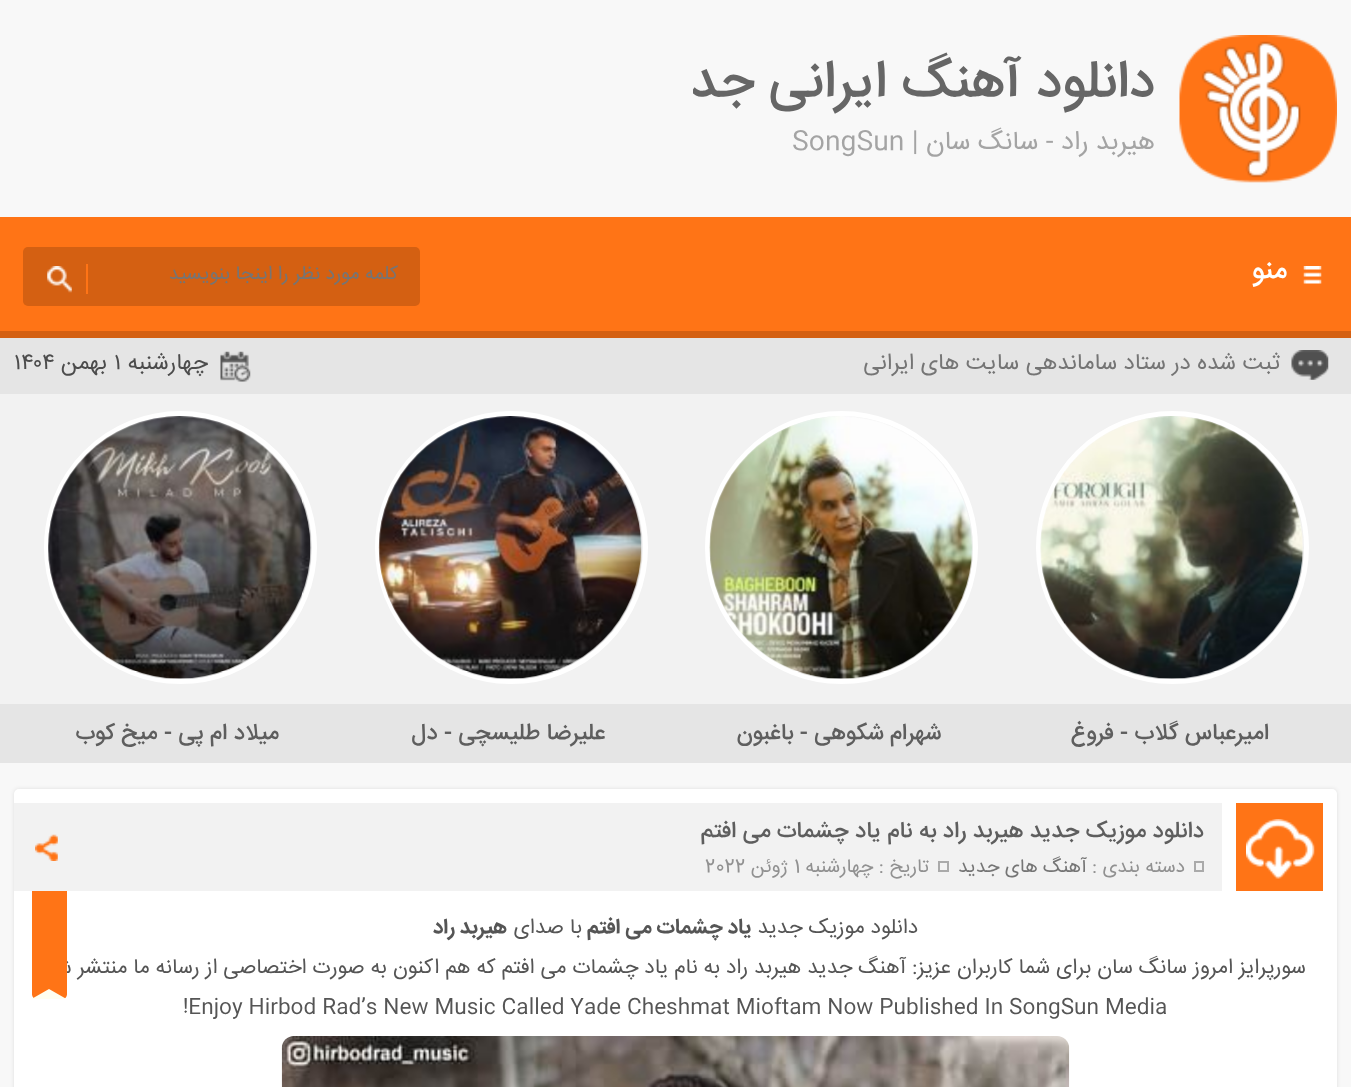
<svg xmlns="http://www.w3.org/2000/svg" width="1351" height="1087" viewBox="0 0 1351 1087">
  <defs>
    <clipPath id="clip1"><rect x="693" y="44" width="462" height="84"/></clipPath>
  </defs>
  <rect width="100%" height="100%" fill="rgb(248,248,248)"/>
  <image x="1179" y="35" width="158" height="148" href="pic1.png"/>
  <g clip-path="url(#clip1)">
    <text x="1155" y="96" font-family="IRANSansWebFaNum" font-size="52.5" font-weight="500" direction="rtl" fill="rgb(102,102,102)">دانلود آهنگ ایرانی جدید</text>
  </g>
  <text x="1155" y="149" font-family="IRANSansWebFaNum" font-size="26.25" direction="rtl" fill="rgb(164,164,164)">هیربد راد - سانگ سان |</text>
  <text x="792" y="149" font-family="IRANSansWebFaNum" font-size="26.25" fill="rgb(164,164,164)">SongSun</text>
  <rect x="0" y="217" width="1351" height="114" fill="rgb(255,116,22)"/>
  <rect x="0" y="331" width="1351" height="7" fill="rgb(212,96,18)"/>
  <image x="1303" y="266" width="19" height="18" href="pic2.png"/>
  <text x="1287" y="278" font-family="IRANSansWebFaNum" font-size="28" font-weight="500" direction="rtl" fill="rgb(255,255,255)">منو</text>
  <rect x="23" y="247" width="397" height="59" rx="5" fill="rgb(212,96,18)"/>
  <text x="398" y="279" font-family="IRANSansWebFaNum" font-size="19.25" direction="rtl" fill="rgb(117,117,117)">كلمه مورد نظر را اينجا بنويسيد</text>
  <rect x="86" y="264" width="2" height="30" fill="rgb(255,116,22)"/>
  <image x="47" y="266" width="25" height="27" href="pic3.png"/>
  <rect x="0" y="338" width="1351" height="56" fill="rgb(229,229,229)"/>
  <image x="1291" y="350" width="38" height="30" href="pic4.png"/>
  <text x="1280" y="369" font-family="IRANSansWebFaNum" font-size="22.75" direction="rtl" fill="rgb(117,117,117)">ثبت شده در ستاد ساماندهی سایت های ایرانی</text>
  <image x="220" y="351" width="31" height="31" href="pic5.png"/>
  <text x="208" y="369" font-family="IRANSansWebFaNum" font-size="22.75" direction="rtl" fill="rgb(76,76,76)">چهارشنبه</text>
  <text x="114" y="369" font-family="IRANSansWebFaNum" font-size="22.75" fill="rgb(76,76,76)">۱</text>
  <text x="107" y="369" font-family="IRANSansWebFaNum" font-size="22.75" direction="rtl" fill="rgb(76,76,76)">بهمن</text>
  <text x="14" y="369" font-family="IRANSansWebFaNum" font-size="22.75" fill="rgb(76,76,76)">۱۴۰۴</text>
  <rect x="0" y="394" width="1351" height="310" fill="rgb(242,242,242)"/>
  <rect x="0" y="704" width="1351" height="59" fill="rgb(229,229,229)"/>
  <circle cx="1172.5" cy="547.5" r="134" fill="none" stroke="rgb(255,255,255)" stroke-width="5"/>
  <image x="1040" y="416" width="264" height="263" href="pic6.png"/>
  <text x="1269" y="739" font-family="IRANSansWebFaNum" font-size="22.75" font-weight="500" direction="rtl" fill="rgb(94,94,94)">امیرعباس گلاب - فروغ</text>
  <circle cx="841.5" cy="547.5" r="134" fill="none" stroke="rgb(255,255,255)" stroke-width="5"/>
  <image x="709" y="416" width="264" height="263" href="pic7.png"/>
  <text x="941" y="739" font-family="IRANSansWebFaNum" font-size="22.75" font-weight="500" direction="rtl" fill="rgb(94,94,94)">شهرام شکوهی - باغبون</text>
  <circle cx="511.5" cy="547.5" r="134" fill="none" stroke="rgb(255,255,255)" stroke-width="5"/>
  <image x="378" y="416" width="264" height="263" href="pic8.png"/>
  <text x="605" y="739" font-family="IRANSansWebFaNum" font-size="22.75" font-weight="500" direction="rtl" fill="rgb(94,94,94)">علیرضا طلیسچی - دل</text>
  <circle cx="180.5" cy="547.5" r="134" fill="none" stroke="rgb(255,255,255)" stroke-width="5"/>
  <image x="48" y="416" width="264" height="263" href="pic9.png"/>
  <text x="279" y="739" font-family="IRANSansWebFaNum" font-size="22.75" font-weight="500" direction="rtl" fill="rgb(94,94,94)">میلاد ام پی - میخ کوب</text>
  <rect x="14" y="789" width="1323" height="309" rx="5" fill="rgba(0,0,0,0.1)" filter="blur(2px)"/>
  <rect x="14" y="789" width="1323" height="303" rx="5" fill="rgb(255,255,255)"/>
  <rect x="14" y="803" width="1208" height="88" fill="rgb(242,242,242)"/>
  <rect x="1236" y="803" width="87" height="88" fill="rgb(255,116,22)"/>
  <image x="1246" y="819" width="69" height="60" href="pic10.png"/>
  <text x="1204" y="837" font-family="IRANSansWebFaNum" font-size="22.75" font-weight="500" direction="rtl" fill="rgb(94,94,94)">دانلود موزیک جدید هیربد راد به نام یاد چشمات می افتم</text>
  <rect x="1195" y="862" width="8" height="9" fill="none" stroke="rgb(170,170,170)" stroke-width="2"/>
  <text x="1185" y="872" font-family="IRANSansWebFaNum" font-size="19.25" direction="rtl" fill="rgb(145,145,145)">دسته بندی :</text>
  <text x="1087" y="872" font-family="IRANSansWebFaNum" font-size="19.25" direction="rtl" fill="rgb(117,117,117)">آهنگ های جدید</text>
  <rect x="939" y="862" width="9" height="9" fill="none" stroke="rgb(170,170,170)" stroke-width="2"/>
  <text x="929" y="872" font-family="IRANSansWebFaNum" font-size="19.25" direction="rtl" fill="rgb(145,145,145)">تاریخ : چهارشنبه</text>
  <text x="794" y="872" font-family="IRANSansWebFaNum" font-size="19.25" fill="rgb(145,145,145)">1</text>
  <text x="788" y="872" font-family="IRANSansWebFaNum" font-size="19.25" direction="rtl" fill="rgb(145,145,145)">ژوئن</text>
  <text x="705" y="872" font-family="IRANSansWebFaNum" font-size="19.25" fill="rgb(145,145,145)">2022</text>
  <image x="35" y="834" width="23" height="27" href="pic11.png"/>
  <text x="918" y="933" font-family="IRANSansWebFaNum" font-size="21" direction="rtl" fill="rgb(85,85,85)">دانلود موزیک جدید</text>
  <text x="751" y="933" font-family="IRANSansWebFaNum" font-size="21" font-weight="bold" direction="rtl" fill="rgb(85,85,85)">یاد چشمات می افتم</text>
  <text x="582" y="933" font-family="IRANSansWebFaNum" font-size="21" direction="rtl" fill="rgb(85,85,85)">با صدای</text>
  <text x="507" y="933" font-family="IRANSansWebFaNum" font-size="21" font-weight="bold" direction="rtl" fill="rgb(85,85,85)">هیربد راد</text>
  <text x="1306" y="973" font-family="IRANSansWebFaNum" font-size="21" direction="rtl" fill="rgb(85,85,85)">سورپرایز امروز سانگ سان برای شما کاربران عزیز: آهنگ جدید هیربد راد به نام یاد چشمات می افتم که هم اکنون به صورت اختصاصی از رسانه ما منتشر شد</text>
  <path d="M32 891H67V994C67 997 65 999 62 999H37C34 999 32 997 32 994Z" fill="rgb(255,116,22)"/>
  <text x="123" y="979" transform="rotate(-90 123 979)" font-family="IRANSansWebFaNum" font-size="17.5" font-weight="500" direction="rtl" fill="rgb(255,255,255)">پست ویژه</text>
  <path d="M66.5 999H31.5L49 989Z" fill="rgb(255,255,240)"/>
  <text x="183" y="1013" font-family="IRANSansWebFaNum" font-size="21" fill="rgb(85,85,85)">!Enjoy Hirbod Rad’s New Music Called Yade Cheshmat Mioftam Now Published In SongSun Media</text>
  <image x="281" y="1036" width="789" height="51" href="pic12.png"/>
</svg>
